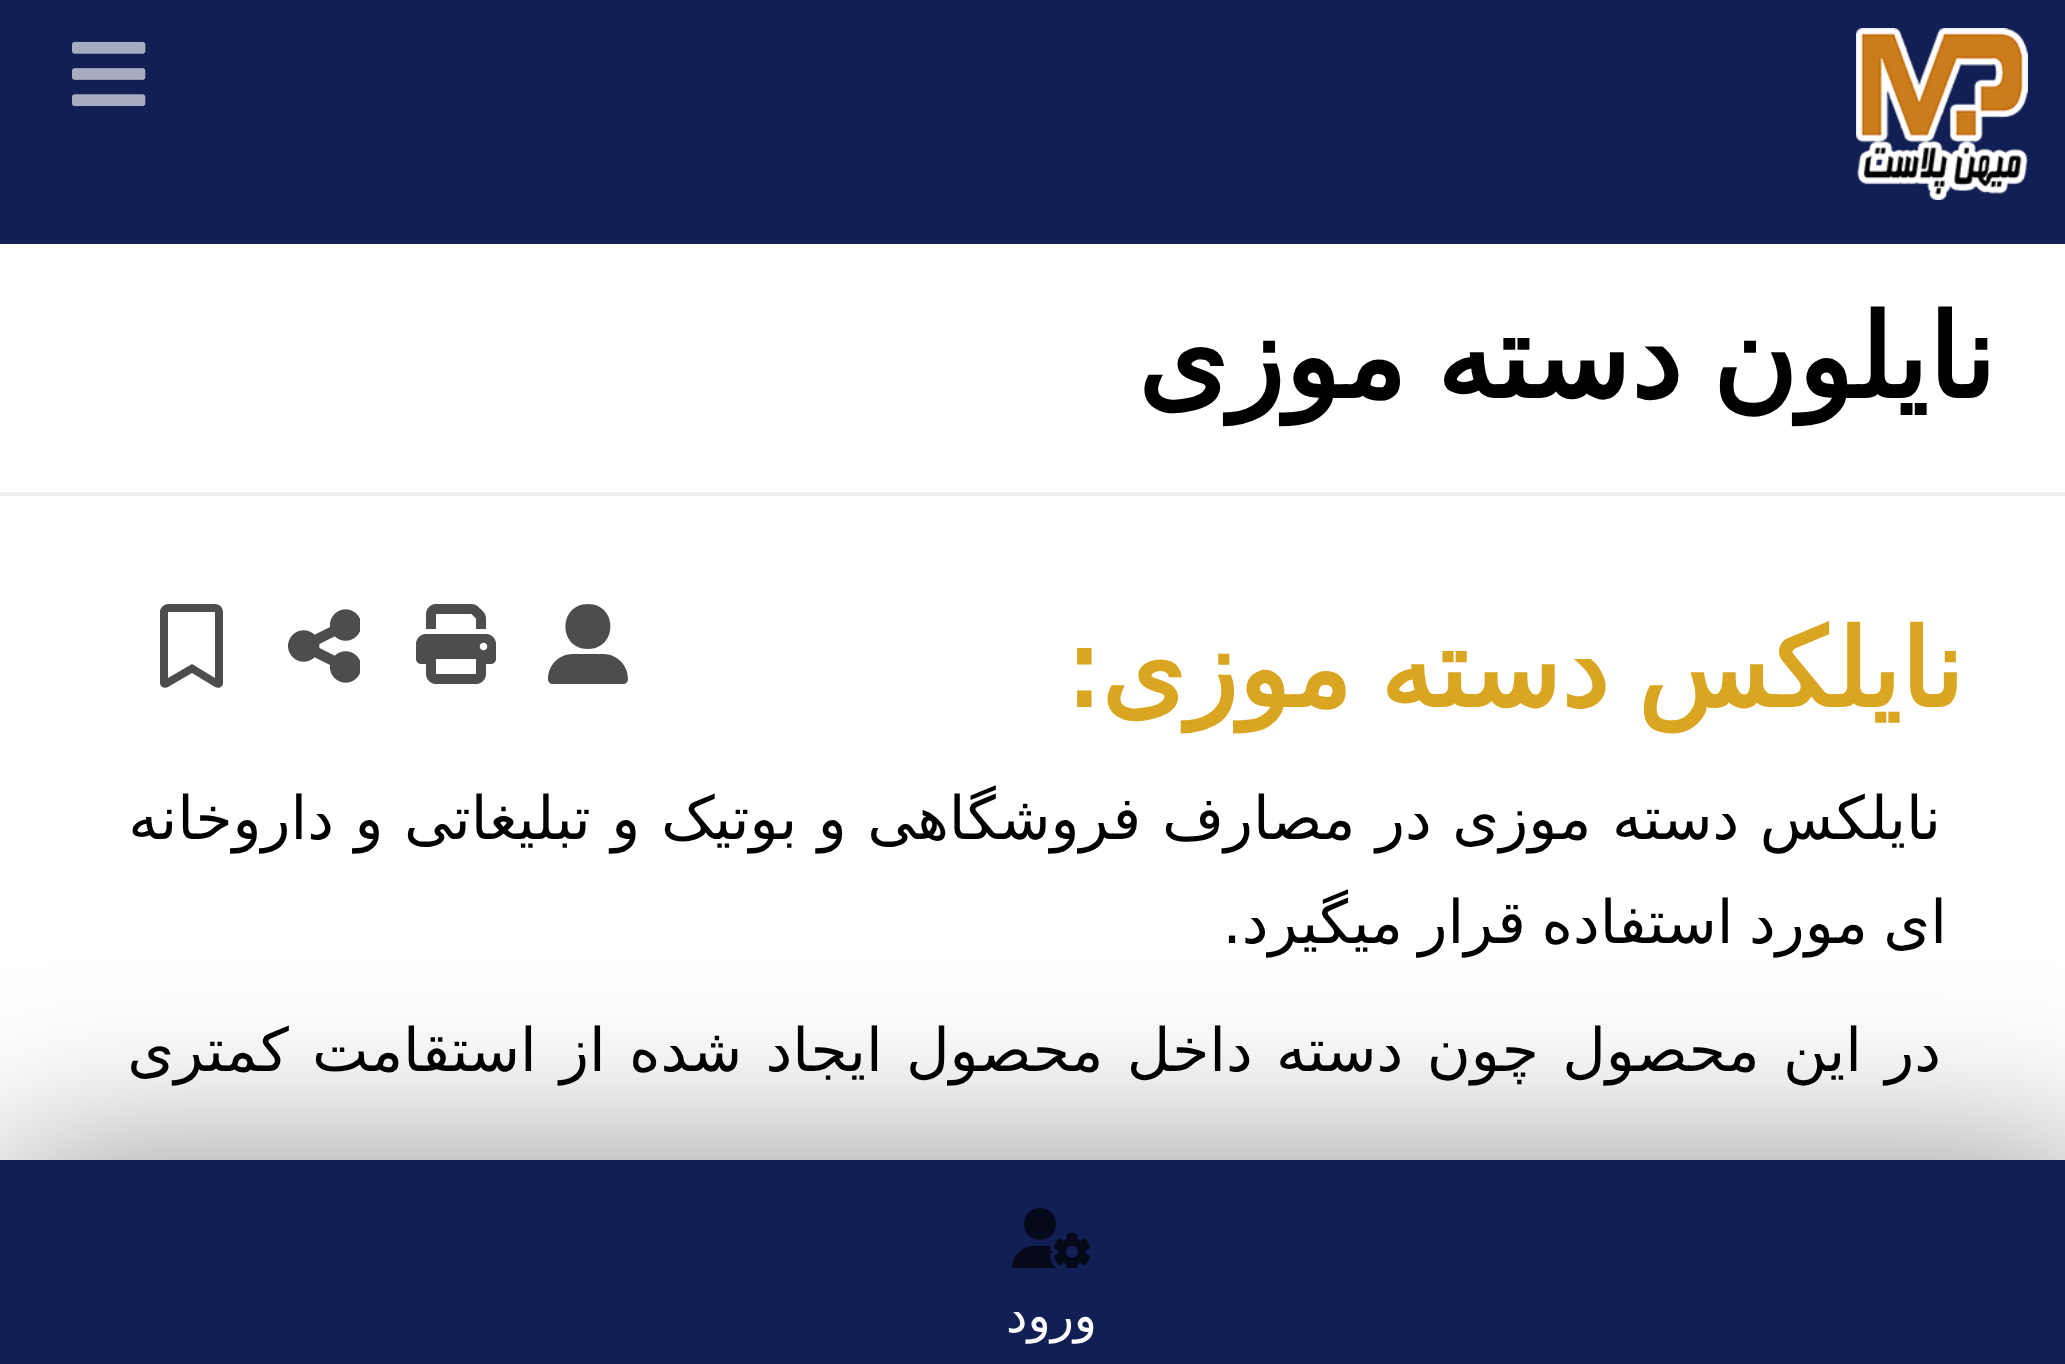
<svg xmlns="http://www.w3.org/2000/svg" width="2065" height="1364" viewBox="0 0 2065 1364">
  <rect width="100%" height="100%" fill="rgb(255,255,255)"/>
  <rect x="0" y="492" width="2065" height="4" fill="rgb(238,238,238)"/>
  <text x="1995" y="398" word-spacing="-7" font-family="DejaVu Sans" font-size="116" font-weight="bold" direction="rtl" fill="rgb(0,0,0)">نایلون دسته موزی</text>
  <path d="M588 649C618 649 618 604 588 604C558 604 558 649 588 649ZM573 654C559 654 548 665 548 679C548 682 550 684 553 684H623C626 684 628 682 628 679C628 665 617 654 603 654Z" fill="rgb(77,77,77)"/>
  <image x="416" y="604" width="80" height="80" href="pic1.png"/>
  <image x="288" y="609" width="72" height="74" href="pic2.png"/>
  <path d="M215 604H168C164 604 160 608 160 612V683C160 687 165 689 168 687L192 673L215 687C219 689 223 687 223 683V612C223 608 220 604 215 604ZM215 678L192 664L168 678V613C168 612 168 612 169 612H214C215 612 215 612 215 613Z" fill="rgb(77,77,77)"/>
  <text x="1963" y="707" word-spacing="-6" font-family="DejaVu Sans" font-size="108" font-weight="bold" direction="rtl" fill="rgb(218,165,32)">نایلکس دسته موزی:</text>
  <g font-family="DejaVu Sans" font-size="60" direction="rtl" fill="rgb(0,0,0)">
    <text x="1941" y="839" word-spacing="1.5">نایلکس دسته موزی در مصارف فروشگاهی و بوتیک و تبلیغاتی و داروخانه</text>
    <text x="1947" y="943" word-spacing="-3.5">ای مورد استفاده قرار میگیرد.</text>
    <text x="1941" y="1071" word-spacing="4.25">در این محصول چون دسته داخل محصول ایجاد شده از استقامت کمتری</text>
  </g>
  <rect x="0" y="0" width="2065" height="244" fill="rgb(17,31,84)"/>
  <image x="1856" y="28" width="172" height="172" href="pic3.png"/>
  <image x="72" y="41" width="74" height="66" href="pic4.png"/>
  <rect x="0" y="1160" width="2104" height="204" fill="rgba(0,0,0,0.43)" filter="blur(90px)"/>
  <rect x="0" y="1160" width="2065" height="204" fill="rgb(17,31,84)"/>
  <image x="1012" y="1208" width="78" height="60" href="pic5.png"/>
  <text x="1097" y="1332" font-family="DejaVu Sans" font-size="48" direction="rtl" fill="rgb(255,255,255)">ورود</text>
</svg>
